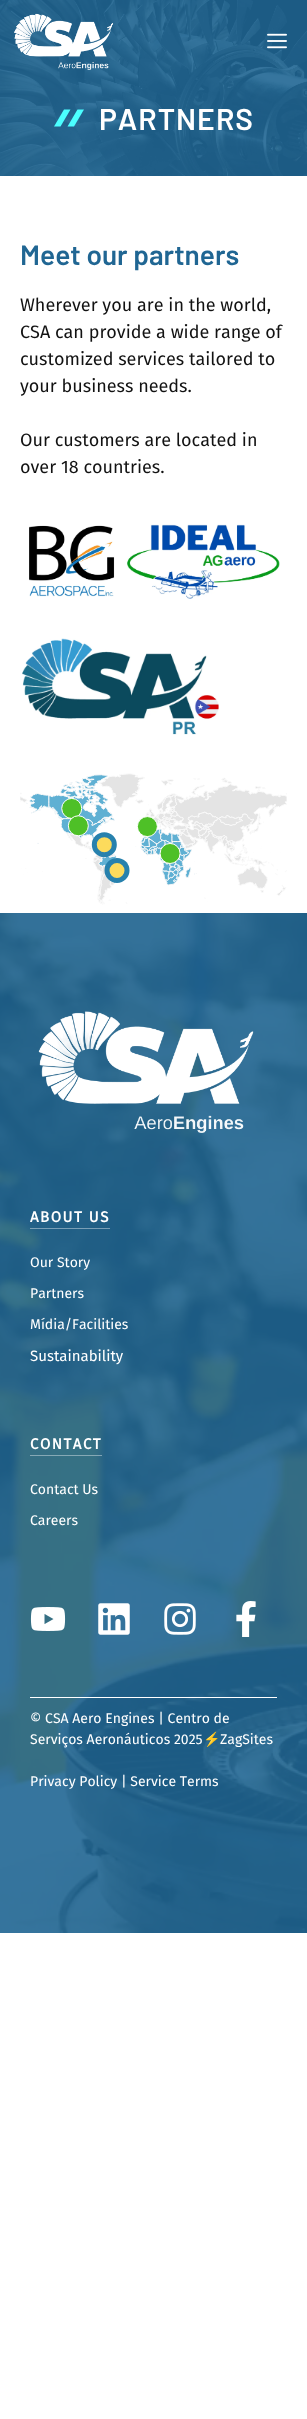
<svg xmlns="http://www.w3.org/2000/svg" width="307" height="2419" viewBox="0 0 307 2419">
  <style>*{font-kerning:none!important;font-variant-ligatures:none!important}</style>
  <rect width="100%" height="100%" fill="rgb(255,255,255)"/>
  <rect x="0" y="0" width="307" height="176" fill="rgb(32,102,147)"/>
  <image x="0" y="0" width="307" height="176" href="pic3.png"/>
  <image x="14" y="13" width="100" height="57" href="pic1.png"/>
  <image x="267" y="33" width="20" height="16" href="pic2.png"/>
  <path d="M60.5 126.5H54L64 109.5H70.5Z" fill="rgb(75,255,255)"/>
  <path d="M74 126.5H67.5L77.5 109.5H84Z" fill="rgb(75,255,255)"/>
  <text x="99" y="130" font-family="Barlow" font-size="30" font-weight="600" letter-spacing="1" fill="rgb(255,255,255)">PARTNERS</text>
  <text x="20" y="265" font-family="Barlow" font-size="28" font-weight="600" fill="rgb(32,102,147)">Meet our partners</text>
  <g font-family="Fira Sans" font-size="18" fill="rgb(18,18,18)">
    <text>
      <tspan x="20" y="311">Wherever you are in the world,</tspan>
      <tspan x="20" y="338">CSA can provide a wide range of</tspan>
      <tspan x="20" y="365">customized services tailored to</tspan>
      <tspan x="20" y="392">your business needs.</tspan>
    </text>
    <text>
      <tspan x="20" y="446">Our customers are located in</tspan>
      <tspan x="20" y="473">over 18 countries.</tspan>
    </text>
  </g>
  <image x="29" y="524" width="251" height="75" href="pic4.png"/>
  <image x="22" y="638" width="197" height="97" href="pic5.png"/>
  <image x="20" y="773" width="267" height="132" href="pic6.png"/>
  <rect x="0" y="913" width="307" height="1020" fill="rgb(32,102,147)"/>
  <image x="0" y="913" width="307" height="1020" href="pic7.png"/>
  <image x="38" y="1011" width="216" height="122" href="pic8.png"/>
  <rect x="30" y="1228" width="80" height="1" fill="rgba(255,255,255,0.4)"/>
  <text x="30" y="1222" font-family="Fira Sans" font-size="15" font-weight="bold" letter-spacing="1.5" fill="rgb(255,255,255)">ABOUT US</text>
  <g font-family="Fira Sans" font-size="14" fill="rgb(255,255,255)">
    <text x="30" y="1267">Our Story</text>
    <text x="30" y="1298">Partners</text>
    <text x="30" y="1329">Mídia/Facilities</text>
  </g>
  <text x="30" y="1361" font-family="Fira Sans" font-size="15" fill="rgb(255,255,255)">Sustainability</text>
  <rect x="30" y="1455" width="72" height="1" fill="rgba(255,255,255,0.4)"/>
  <text x="30" y="1449" font-family="Fira Sans" font-size="15" font-weight="bold" letter-spacing="1.5" fill="rgb(255,255,255)">CONTACT</text>
  <g font-family="Fira Sans" font-size="14" fill="rgb(255,255,255)">
    <text x="30" y="1494">Contact Us</text>
    <text x="30" y="1525">Careers</text>
  </g>
  <image x="30" y="1607" width="36" height="24" href="pic9.png"/>
  <image x="98" y="1603" width="32" height="32" href="pic10.png"/>
  <image x="164" y="1603" width="32" height="32" href="pic11.png"/>
  <image x="236" y="1601" width="20" height="36" href="pic12.png"/>
  <rect x="30" y="1697" width="247" height="1" fill="rgb(255,255,255)"/>
  <g font-family="Fira Sans" font-size="14" fill="rgb(255,255,255)">
    <text>
      <tspan x="30" y="1723">© CSA Aero Engines | Centro de</tspan>
      <tspan x="30" y="1744">Serviços Aeronáuticos 2025</tspan>
    </text>
  </g>
  <text x="203" y="1744" font-family="Noto Color Emoji" font-size="14" fill="rgb(255,255,255)">⚡</text>
  <g font-family="Fira Sans" font-size="14" fill="rgb(255,255,255)">
    <text x="220" y="1744">ZagSites</text>
    <text x="30" y="1786">Privacy Policy | Service Terms</text>
  </g>
</svg>
